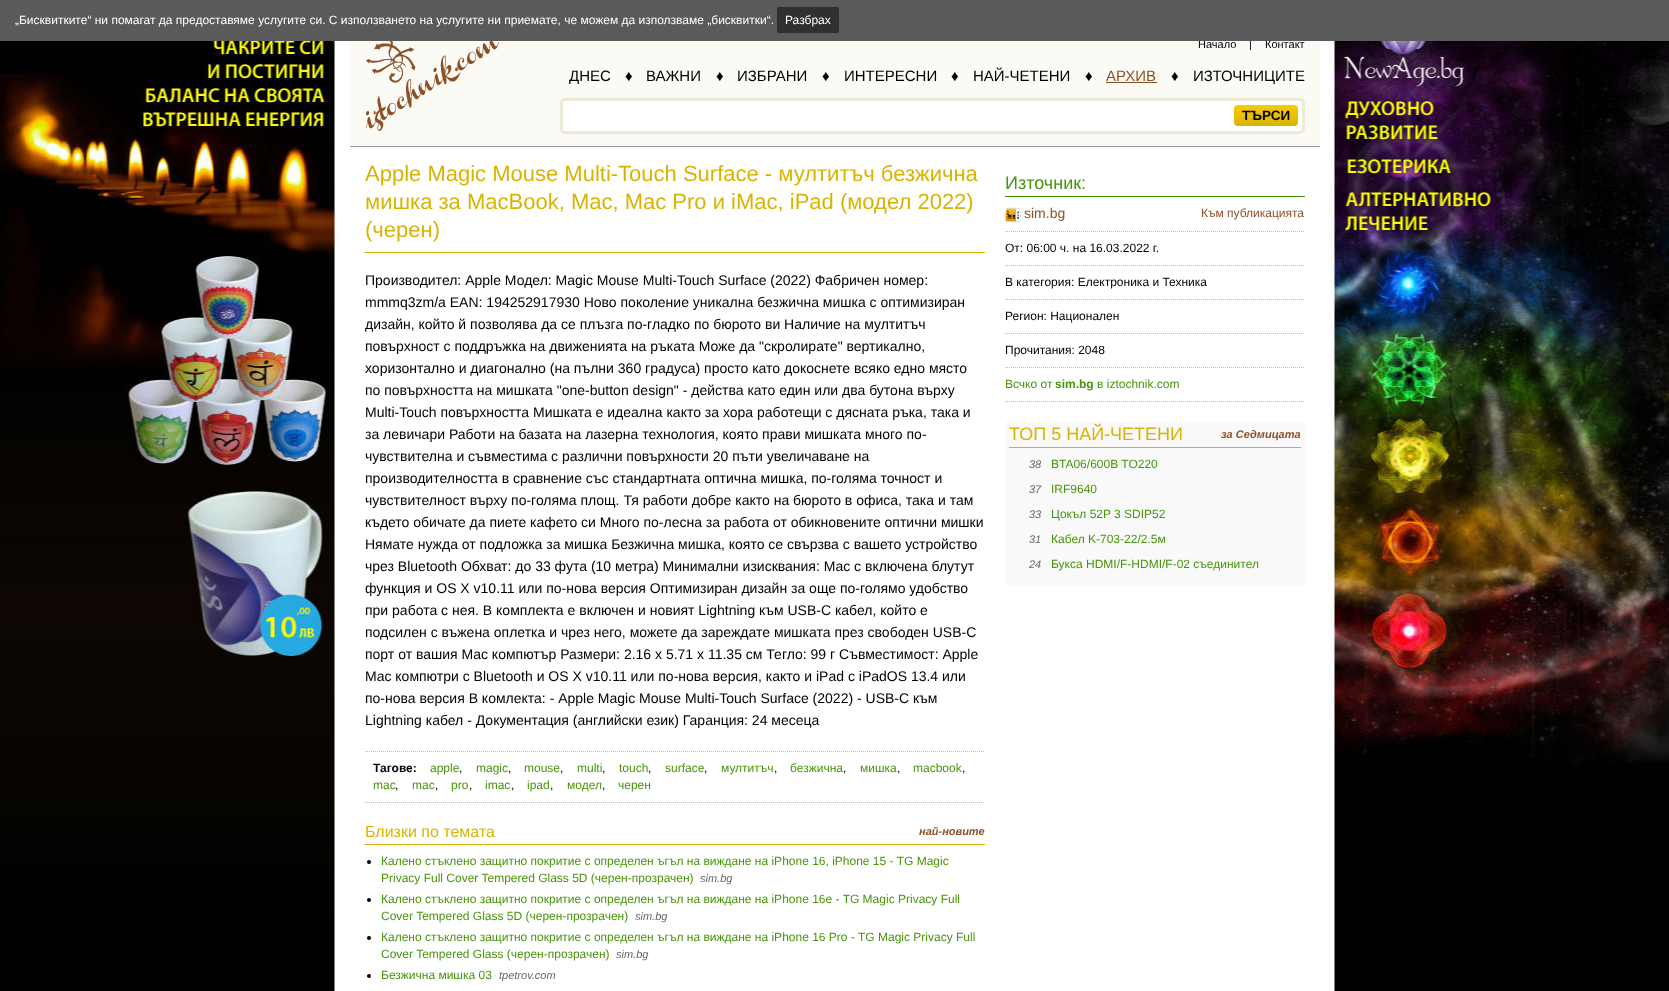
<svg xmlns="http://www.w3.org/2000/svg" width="1669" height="991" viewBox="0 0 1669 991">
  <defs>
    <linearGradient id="g1" gradientUnits="userSpaceOnUse" x1="1234" y1="105" x2="1234" y2="126"><stop offset="0" stop-color="rgb(249,204,2)"/><stop offset="1" stop-color="rgb(217,179,4)"/></linearGradient>
  </defs>
  <rect width="100%" height="100%" fill="rgb(255,255,255)"/>
  <image x="0" y="41" width="1669" height="950" href="pic1.png"/>
  <rect x="350" y="41" width="970" height="105" fill="rgb(251,250,244)"/>
  <g font-family="Liberation Sans" font-size="11" fill="rgb(0,0,0)">
    <text x="1198" y="48">Начало</text>
    <text x="1249" y="48">|</text>
    <text x="1265" y="48">Контакт</text>
  </g>
  <rect x="0" y="0" width="1669" height="41" fill="rgb(90,90,90)"/>
  <text x="15" y="24" font-family="Liberation Sans" font-size="12" fill="rgb(255,255,255)">„Бисквитките“ ни помагат да предоставяме услугите си. С използването на услугите ни приемате, че можем да използваме „бисквитки“.</text>
  <rect x="777" y="7" width="62" height="26" rx="2" fill="rgb(48,48,48)"/>
  <text x="785" y="24" font-family="Liberation Sans" font-size="12" fill="rgb(255,255,255)">Разбрах</text>
  <rect x="350" y="146" width="970" height="1" fill="rgb(153,153,153)"/>
  <image x="366" y="41" width="133" height="90" href="pic2.png"/>
  <g font-family="Liberation Sans" font-size="15" fill="rgb(0,0,0)">
    <text x="569" y="81">ДНЕС</text>
    <text x="625" y="81">♦</text>
    <text x="646" y="81">ВАЖНИ</text>
    <text x="716" y="81">♦</text>
    <text x="737" y="81">ИЗБРАНИ</text>
    <text x="822" y="81">♦</text>
    <text x="844" y="81">ИНТЕРЕСНИ</text>
    <text x="951" y="81">♦</text>
    <text x="973" y="81">НАЙ-ЧЕТЕНИ</text>
    <text x="1085" y="81">♦</text>
  </g>
  <text x="1106" y="81" font-family="Liberation Sans" font-size="15" fill="rgb(141,81,40)">АРХИВ</text>
  <rect x="1106" y="82" width="51" height="1" fill="rgb(141,81,40)"/>
  <g font-family="Liberation Sans" font-size="15" fill="rgb(0,0,0)">
    <text x="1171" y="81">♦</text>
    <text x="1193" y="81">ИЗТОЧНИЦИТЕ</text>
  </g>
  <rect x="561.5" y="99.5" width="742" height="33" rx="3.5" fill="rgb(255,255,255)" stroke="rgb(237,235,213)" stroke-width="3"/>
  <rect x="1234" y="105" width="64" height="21" rx="4" fill="url(#g1)"/>
  <text x="1242" y="120" font-family="Liberation Sans" font-size="13.5" font-weight="bold" fill="rgb(0,0,0)">ТЪРСИ</text>
  <rect x="365" y="252" width="620" height="1" fill="rgb(217,179,4)"/>
  <g font-family="Liberation Sans" font-size="22" fill="rgb(217,179,4)">
    <text>
      <tspan x="365" y="181">Apple Magic Mouse Multi-Touch Surface - мултитъч безжична</tspan>
      <tspan x="365" y="209">мишка за MacBook, Mac, Mac Pro и iMac, iPad (модел 2022)</tspan>
      <tspan x="365" y="237">(черен)</tspan>
    </text>
  </g>
  <g font-family="Liberation Sans" font-size="14" fill="rgb(0,0,0)">
    <text>
      <tspan x="365" y="285">Производител: Apple Модел: Magic Mouse Multi-Touch Surface (2022) Фабричен номер:</tspan>
      <tspan x="365" y="307">mmmq3zm/a EAN: 194252917930 Ново поколение уникална безжична мишка с оптимизиран</tspan>
      <tspan x="365" y="329">дизайн, който й позволява да се плъзга по-гладко по бюрото ви Наличие на мултитъч</tspan>
      <tspan x="365" y="351">повърхност с поддръжка на движенията на ръката Може да "скролирате" вертикално,</tspan>
      <tspan x="365" y="373">хоризонтално и диагонално (на пълни 360 градуса) просто като докоснете всяко едно място</tspan>
      <tspan x="365" y="395">по повърхността на мишката "one-button design" - действа като един или два бутона върху</tspan>
      <tspan x="365" y="417">Multi-Touch повърхността Мишката е идеална както за хора работещи с дясната ръка, така и</tspan>
      <tspan x="365" y="439">за левичари Работи на базата на лазерна технология, която прави мишката много по-</tspan>
      <tspan x="365" y="461">чувствителна и съвместима с различни повърхности 20 пъти увеличаване на</tspan>
      <tspan x="365" y="483">производителността в сравнение със стандартната оптична мишка, по-голяма точност и</tspan>
      <tspan x="365" y="505">чувствителност върху по-голяма площ. Тя работи добре както на бюрото в офиса, така и там</tspan>
      <tspan x="365" y="527">където обичате да пиете кафето си Много по-лесна за работа от обикновените оптични мишки</tspan>
      <tspan x="365" y="549">Нямате нужда от подложка за мишка Безжична мишка, която се свързва с вашето устройство</tspan>
      <tspan x="365" y="571">чрез Bluetooth Обхват: до 33 фута (10 метра) Минимални изисквания: Mac с включена блутут</tspan>
      <tspan x="365" y="593">функция и OS X v10.11 или по-нова версия Оптимизиран дизайн за още по-голямо удобство</tspan>
      <tspan x="365" y="615">при работа с нея. В комплекта е включен и новият Lightning към USB-C кабел, който е</tspan>
      <tspan x="365" y="637">подсилен с въжена оплетка и чрез него, можете да зареждате мишката през свободен USB-C</tspan>
      <tspan x="365" y="659">порт от вашия Mac компютър Размери: 2.16 x 5.71 x 11.35 см Тегло: 99 г Съвместимост: Apple</tspan>
      <tspan x="365" y="681">Mac компютри с Bluetooth и OS X v10.11 или по-нова версия, както и iPad с iPadOS 13.4 или</tspan>
      <tspan x="365" y="703">по-нова версия В комлекта: - Apple Magic Mouse Multi-Touch Surface (2022) - USB-C към</tspan>
      <tspan x="365" y="725">Lightning кабел - Документация (английски език) Гаранция: 24 месеца</tspan>
    </text>
  </g>
  <path d="M365 751.5H985" fill="none" stroke="rgb(187,187,187)" stroke-dasharray="1 1"/>
  <path d="M365 802.5H985" fill="none" stroke="rgb(187,187,187)" stroke-dasharray="1 1"/>
  <text x="373" y="772" font-family="Liberation Sans" font-size="12" font-weight="bold" fill="rgb(0,0,0)">Тагове:</text>
  <text x="430" y="772" font-family="Liberation Sans" font-size="12" fill="rgb(72,148,10)">apple</text>
  <text x="459" y="772" font-family="Liberation Sans" font-size="12" fill="rgb(0,0,0)">,</text>
  <text x="476" y="772" font-family="Liberation Sans" font-size="12" fill="rgb(72,148,10)">magic</text>
  <text x="508" y="772" font-family="Liberation Sans" font-size="12" fill="rgb(0,0,0)">,</text>
  <text x="524" y="772" font-family="Liberation Sans" font-size="12" fill="rgb(72,148,10)">mouse</text>
  <text x="560" y="772" font-family="Liberation Sans" font-size="12" fill="rgb(0,0,0)">,</text>
  <text x="577" y="772" font-family="Liberation Sans" font-size="12" fill="rgb(72,148,10)">multi</text>
  <text x="602" y="772" font-family="Liberation Sans" font-size="12" fill="rgb(0,0,0)">,</text>
  <text x="619" y="772" font-family="Liberation Sans" font-size="12" fill="rgb(72,148,10)">touch</text>
  <text x="648" y="772" font-family="Liberation Sans" font-size="12" fill="rgb(0,0,0)">,</text>
  <text x="665" y="772" font-family="Liberation Sans" font-size="12" fill="rgb(72,148,10)">surface</text>
  <text x="704" y="772" font-family="Liberation Sans" font-size="12" fill="rgb(0,0,0)">,</text>
  <text x="721" y="772" font-family="Liberation Sans" font-size="12" fill="rgb(72,148,10)">мултитъч</text>
  <text x="774" y="772" font-family="Liberation Sans" font-size="12" fill="rgb(0,0,0)">,</text>
  <text x="790" y="772" font-family="Liberation Sans" font-size="12" fill="rgb(72,148,10)">безжична</text>
  <text x="843" y="772" font-family="Liberation Sans" font-size="12" fill="rgb(0,0,0)">,</text>
  <text x="860" y="772" font-family="Liberation Sans" font-size="12" fill="rgb(72,148,10)">мишка</text>
  <text x="897" y="772" font-family="Liberation Sans" font-size="12" fill="rgb(0,0,0)">,</text>
  <text x="913" y="772" font-family="Liberation Sans" font-size="12" fill="rgb(72,148,10)">macbook</text>
  <text x="962" y="772" font-family="Liberation Sans" font-size="12" fill="rgb(0,0,0)">,</text>
  <text x="373" y="789" font-family="Liberation Sans" font-size="12" fill="rgb(72,148,10)">mac</text>
  <text x="395" y="789" font-family="Liberation Sans" font-size="12" fill="rgb(0,0,0)">,</text>
  <text x="412" y="789" font-family="Liberation Sans" font-size="12" fill="rgb(72,148,10)">mac</text>
  <text x="435" y="789" font-family="Liberation Sans" font-size="12" fill="rgb(0,0,0)">,</text>
  <text x="451" y="789" font-family="Liberation Sans" font-size="12" fill="rgb(72,148,10)">pro</text>
  <text x="469" y="789" font-family="Liberation Sans" font-size="12" fill="rgb(0,0,0)">,</text>
  <text x="485" y="789" font-family="Liberation Sans" font-size="12" fill="rgb(72,148,10)">imac</text>
  <text x="511" y="789" font-family="Liberation Sans" font-size="12" fill="rgb(0,0,0)">,</text>
  <text x="527" y="789" font-family="Liberation Sans" font-size="12" fill="rgb(72,148,10)">ipad</text>
  <text x="550" y="789" font-family="Liberation Sans" font-size="12" fill="rgb(0,0,0)">,</text>
  <text x="567" y="789" font-family="Liberation Sans" font-size="12" fill="rgb(72,148,10)">модел</text>
  <text x="602" y="789" font-family="Liberation Sans" font-size="12" fill="rgb(0,0,0)">,</text>
  <text x="618" y="789" font-family="Liberation Sans" font-size="12" fill="rgb(72,148,10)">черен</text>
  <rect x="365" y="844" width="620" height="1" fill="rgb(217,179,4)"/>
  <text x="365" y="837" font-family="Liberation Sans" font-size="16" fill="rgb(217,179,4)">Близки по темата</text>
  <text x="919" y="835" font-family="Liberation Sans" font-size="11" font-weight="bold" font-style="italic" fill="rgb(141,81,40)">най-новите</text>
  <circle cx="369" cy="862" r="2" fill="rgb(0,0,0)"/>
  <g font-family="Liberation Sans" font-size="12" fill="rgb(72,148,10)">
    <text>
      <tspan x="381" y="865">Калено стъклено защитно покритие с определен ъгъл на виждане на iPhone 16, iPhone 15 - TG Magic</tspan>
      <tspan x="381" y="882">Privacy Full Cover Tempered Glass 5D (черен-прозрачен)</tspan>
    </text>
  </g>
  <text x="700" y="882" font-family="Liberation Sans" font-size="11" font-style="italic" fill="rgb(102,102,102)">sim.bg</text>
  <circle cx="369" cy="900" r="2" fill="rgb(0,0,0)"/>
  <g font-family="Liberation Sans" font-size="12" fill="rgb(72,148,10)">
    <text>
      <tspan x="381" y="903">Калено стъклено защитно покритие с определен ъгъл на виждане на iPhone 16e - TG Magic Privacy Full</tspan>
      <tspan x="381" y="920">Cover Tempered Glass 5D (черен-прозрачен)</tspan>
    </text>
  </g>
  <text x="635" y="920" font-family="Liberation Sans" font-size="11" font-style="italic" fill="rgb(102,102,102)">sim.bg</text>
  <circle cx="369" cy="938" r="2" fill="rgb(0,0,0)"/>
  <g font-family="Liberation Sans" font-size="12" fill="rgb(72,148,10)">
    <text>
      <tspan x="381" y="941">Калено стъклено защитно покритие с определен ъгъл на виждане на iPhone 16 Pro - TG Magic Privacy Full</tspan>
      <tspan x="381" y="958">Cover Tempered Glass (черен-прозрачен)</tspan>
    </text>
  </g>
  <text x="616" y="958" font-family="Liberation Sans" font-size="11" font-style="italic" fill="rgb(102,102,102)">sim.bg</text>
  <circle cx="369" cy="976" r="2" fill="rgb(0,0,0)"/>
  <text x="381" y="979" font-family="Liberation Sans" font-size="12" fill="rgb(72,148,10)">Безжична мишка 03</text>
  <text x="499" y="979" font-family="Liberation Sans" font-size="11" font-style="italic" fill="rgb(102,102,102)">tpetrov.com</text>
  <rect x="1005" y="196" width="300" height="1" fill="rgb(72,148,10)"/>
  <text x="1005" y="189" font-family="Liberation Sans" font-size="18" fill="rgb(72,148,10)">Източник:</text>
  <path d="M1005 231.5H1305" fill="none" stroke="rgb(187,187,187)" stroke-dasharray="1 1"/>
  <image x="1005" y="207" width="16" height="16" href="pic3.png"/>
  <text x="1024" y="218" font-family="Liberation Sans" font-size="14" fill="rgb(141,81,40)">sim.bg</text>
  <text x="1201" y="217" font-family="Liberation Sans" font-size="12" fill="rgb(141,81,40)">Към публикацията</text>
  <path d="M1005 265.5H1305" fill="none" stroke="rgb(187,187,187)" stroke-dasharray="1 1"/>
  <text x="1005" y="252" font-family="Liberation Sans" font-size="12" fill="rgb(0,0,0)">От: 06:00 ч. на 16.03.2022 г.</text>
  <path d="M1005 299.5H1305" fill="none" stroke="rgb(187,187,187)" stroke-dasharray="1 1"/>
  <text x="1005" y="286" font-family="Liberation Sans" font-size="12" fill="rgb(0,0,0)">В категория: Електроника и Техника</text>
  <path d="M1005 333.5H1305" fill="none" stroke="rgb(187,187,187)" stroke-dasharray="1 1"/>
  <text x="1005" y="320" font-family="Liberation Sans" font-size="12" fill="rgb(0,0,0)">Регион: Национален</text>
  <path d="M1005 367.5H1305" fill="none" stroke="rgb(187,187,187)" stroke-dasharray="1 1"/>
  <text x="1005" y="354" font-family="Liberation Sans" font-size="12" fill="rgb(0,0,0)">Прочитания: 2048</text>
  <path d="M1005 401.5H1305" fill="none" stroke="rgb(187,187,187)" stroke-dasharray="1 1"/>
  <text x="1005" y="388" font-family="Liberation Sans" font-size="12" fill="rgb(72,148,10)">Всчко от</text>
  <text x="1055" y="388" font-family="Liberation Sans" font-size="12" font-weight="bold" fill="rgb(72,148,10)">sim.bg</text>
  <text x="1097" y="388" font-family="Liberation Sans" font-size="12" fill="rgb(72,148,10)">в iztochnik.com</text>
  <rect x="1005" y="422" width="300" height="163" fill="rgb(249,249,249)"/>
  <rect x="1009" y="447" width="292" height="1" fill="rgb(217,179,4)"/>
  <text x="1009" y="440" font-family="Liberation Sans" font-size="18" fill="rgb(217,179,4)">ТОП 5 НАЙ-ЧЕТЕНИ</text>
  <text x="1221" y="438" font-family="Liberation Sans" font-size="11" font-weight="bold" font-style="italic" fill="rgb(141,81,40)">за Седмицата</text>
  <text x="1029" y="468" font-family="Liberation Sans" font-size="11" font-style="italic" fill="rgb(102,102,102)">38</text>
  <text x="1051" y="468" font-family="Liberation Sans" font-size="12" fill="rgb(72,148,10)">BTA06/600B TO220</text>
  <text x="1029" y="493" font-family="Liberation Sans" font-size="11" font-style="italic" fill="rgb(102,102,102)">37</text>
  <text x="1051" y="493" font-family="Liberation Sans" font-size="12" fill="rgb(72,148,10)">IRF9640</text>
  <text x="1029" y="518" font-family="Liberation Sans" font-size="11" font-style="italic" fill="rgb(102,102,102)">33</text>
  <text x="1051" y="518" font-family="Liberation Sans" font-size="12" fill="rgb(72,148,10)">Цокъл 52P 3 SDIP52</text>
  <text x="1029" y="543" font-family="Liberation Sans" font-size="11" font-style="italic" fill="rgb(102,102,102)">31</text>
  <text x="1051" y="543" font-family="Liberation Sans" font-size="12" fill="rgb(72,148,10)">Кабел K-703-22/2.5м</text>
  <text x="1029" y="568" font-family="Liberation Sans" font-size="11" font-style="italic" fill="rgb(102,102,102)">24</text>
  <text x="1051" y="568" font-family="Liberation Sans" font-size="12" fill="rgb(72,148,10)">Букса HDMI/F-HDMI/F-02 съединител</text>
</svg>
